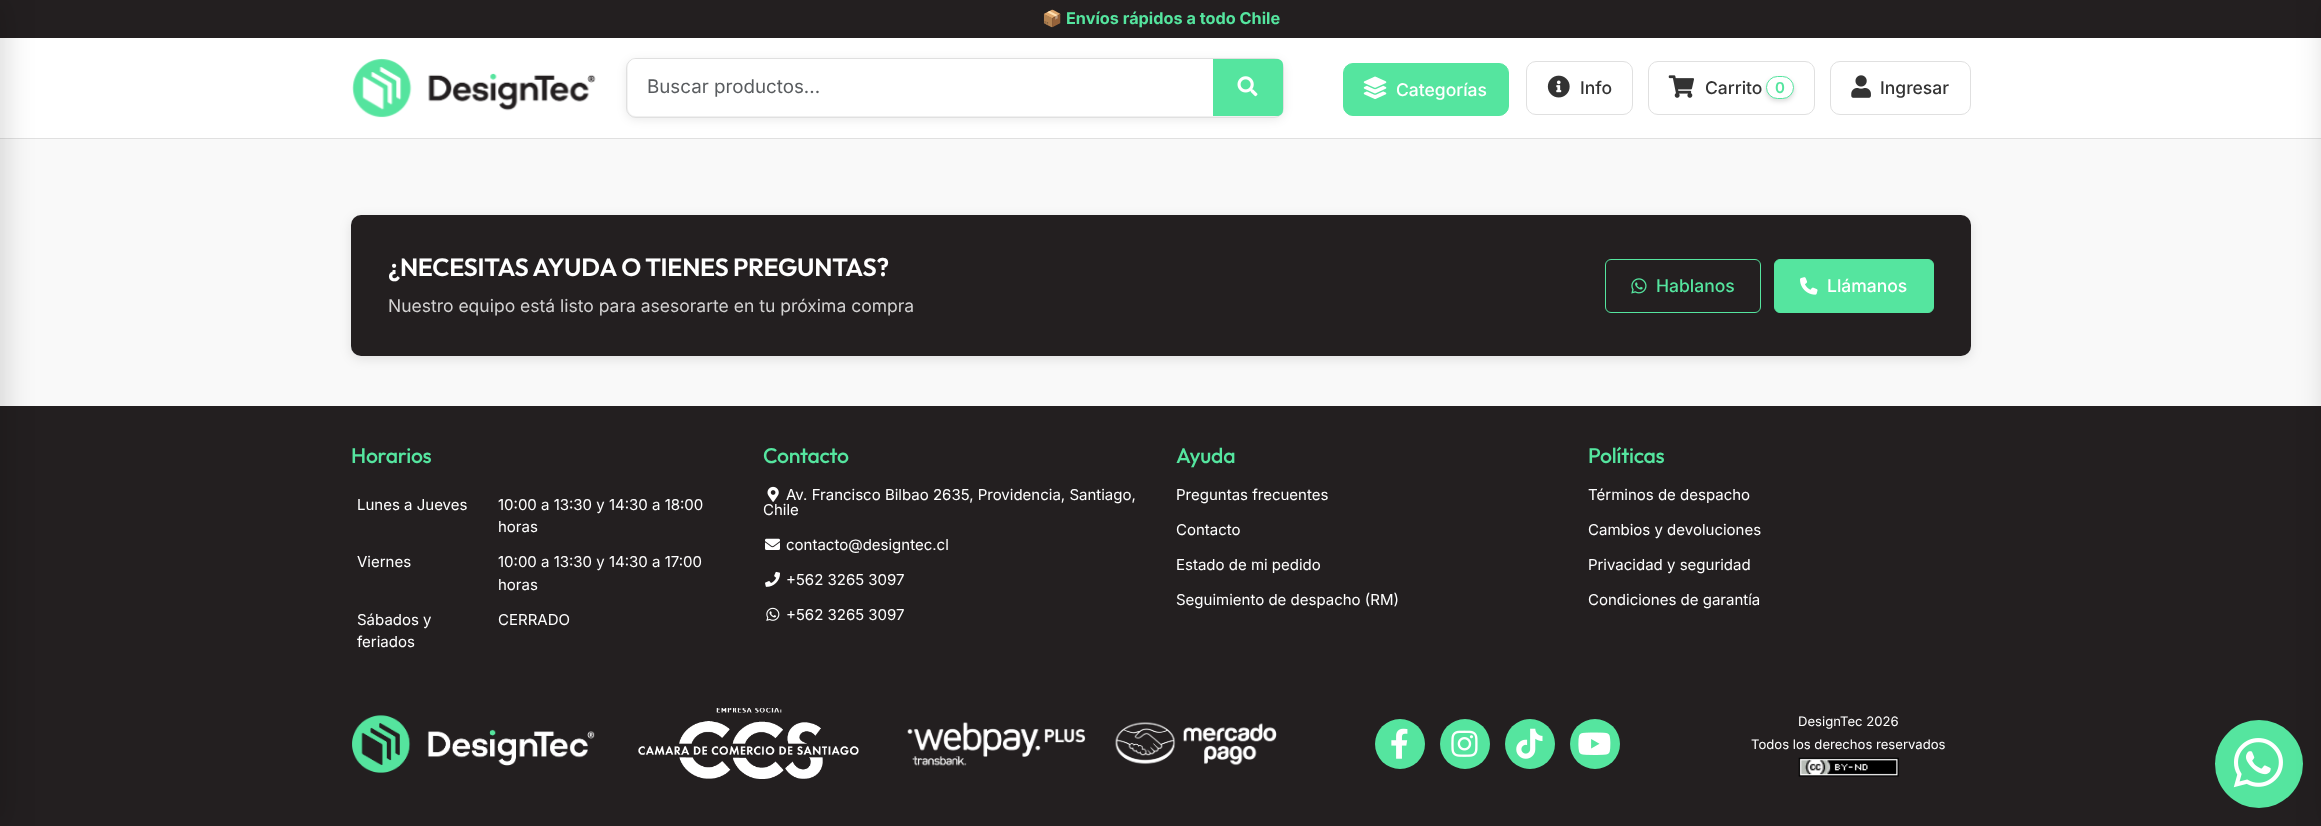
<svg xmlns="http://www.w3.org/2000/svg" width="2321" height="826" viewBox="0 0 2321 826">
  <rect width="100%" height="100%" fill="rgb(249,249,249)"/>
  <rect x="0" y="38" width="2321" height="100" fill="rgb(255,255,255)"/>
  <rect x="0" y="0" width="2321" height="38" fill="rgb(35,31,32)"/>
  <rect x="0" y="138" width="2321" height="1" fill="rgb(224,224,224)"/>
  <rect x="0" y="406" width="2321" height="420" fill="rgb(35,31,32)"/>
  <rect x="-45" y="0" width="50" height="826" fill="rgba(0,0,0,0.15)" filter="blur(15px)"/>
  <text x="1042" y="24" font-family="Noto Color Emoji" font-size="16.25" font-weight="bold" fill="rgb(85,229,159)">📦</text>
  <text x="1066" y="24" font-family="Inter" font-size="16.25" font-weight="bold" fill="rgb(85,229,159)">Envíos rápidos a todo Chile</text>
  <image x="352" y="58" width="244" height="60" href="pic1.png"/>
  <rect x="626" y="60" width="658" height="60" rx="10" fill="rgba(0,0,0,0.08)" filter="blur(5px)"/>
  <rect x="626.5" y="58.5" width="657" height="59" rx="9.5" fill="none" stroke="rgb(224,224,224)"/>
  <path d="M636 59H1214V116H636C631.5 116 628 112.5 628 108V67C628 62.5 631.5 59 636 59Z" fill="rgb(255,255,255)"/>
  <text x="647" y="93" font-family="Inter" font-size="18.75" fill="rgb(89,92,95)">Buscar productos...</text>
  <path d="M1213 59H1277C1280.5 59 1283 61.5 1283 65V110C1283 113.5 1280.5 116 1277 116H1213Z" fill="rgb(85,229,159)"/>
  <image x="1237" y="76" width="21" height="21" href="pic2.png"/>
  <rect x="1343.5" y="63.5" width="165" height="52" rx="9.5" fill="rgb(85,229,159)" stroke="rgb(85,229,159)"/>
  <image x="1363" y="76" width="24" height="23" href="pic3.png"/>
  <text x="1396" y="96" font-family="Inter" font-size="17.5" font-weight="500" fill="rgb(255,255,255)">Categorías</text>
  <rect x="1526.5" y="61.5" width="106" height="53" rx="9.5" fill="none" stroke="rgb(224,224,224)"/>
  <image x="1547" y="75" width="23" height="23" href="pic4.png"/>
  <text x="1580" y="94" font-family="Inter" font-size="17.5" font-weight="500" fill="rgb(51,51,51)">Info</text>
  <rect x="1648.5" y="61.5" width="166" height="53" rx="9.5" fill="none" stroke="rgb(224,224,224)"/>
  <image x="1668" y="75" width="26" height="23" href="pic5.png"/>
  <text x="1705" y="94" font-family="Inter" font-size="17.5" font-weight="500" fill="rgb(51,51,51)">Carrito</text>
  <rect x="1766" y="79" width="28" height="22" rx="11" fill="rgba(0,0,0,0.15)" filter="blur(2.5px)"/>
  <rect x="1766.5" y="76.5" width="27" height="22" rx="11" fill="rgb(255,255,255)" stroke="rgb(85,229,159)"/>
  <text x="1775" y="93" font-family="Inter" font-size="15" font-weight="600" fill="rgb(85,229,159)">0</text>
  <rect x="1830.5" y="61.5" width="140" height="53" rx="9.5" fill="none" stroke="rgb(224,224,224)"/>
  <image x="1851" y="75" width="20" height="23" href="pic6.png"/>
  <text x="1880" y="94" font-family="Inter" font-size="17.5" font-weight="500" fill="rgb(51,51,51)">Ingresar</text>
  <circle cx="2259" cy="764" r="44" fill="rgb(85,229,159)"/>
  <image x="2233" y="738" width="50" height="50" href="pic21.png"/>
  <rect x="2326" y="0" width="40" height="826" fill="rgba(0,0,0,0.15)" filter="blur(15px)"/>
  <rect x="351" y="218" width="1620" height="141" rx="10" fill="rgba(0,0,0,0.1)" filter="blur(6px)"/>
  <rect x="351" y="215" width="1620" height="141" rx="10" fill="rgb(35,31,32)"/>
  <text x="388" y="276" font-family="Outfit" font-size="25" font-weight="600" letter-spacing="-0.25" fill="rgb(255,255,255)">¿NECESITAS AYUDA O TIENES PREGUNTAS?</text>
  <text x="388" y="312" font-family="Inter" font-size="17.5" fill="rgb(211,210,210)">Nuestro equipo está listo para asesorarte en tu próxima compra</text>
  <rect x="1605.5" y="259.5" width="155" height="53" rx="5.5" fill="none" stroke="rgb(85,229,159)"/>
  <image x="1631" y="278" width="16" height="16" href="pic7.png"/>
  <text x="1656" y="292" font-family="Inter" font-size="17.5" font-weight="500" fill="rgb(85,229,159)">Hablanos</text>
  <rect x="1774.5" y="259.5" width="159" height="53" rx="5.5" fill="rgb(85,229,159)" stroke="rgb(85,229,159)"/>
  <image x="1800" y="277" width="18" height="18" href="pic8.png"/>
  <text x="1827" y="292" font-family="Inter" font-size="17.5" font-weight="500" fill="rgb(255,255,255)">Llámanos</text>
  <text x="351" y="463" font-family="Outfit" font-size="21.25" font-weight="500" letter-spacing="-0.25" fill="rgb(85,229,159)">Horarios</text>
  <g font-family="Inter" font-size="15" fill="rgb(255,255,255)">
    <text x="357" y="510">Lunes a Jueves</text>
    <text>
      <tspan x="498" y="510">10:00 a 13:30 y 14:30 a 18:00</tspan>
      <tspan x="498" y="532">horas</tspan>
    </text>
    <text x="357" y="567">Viernes</text>
    <text>
      <tspan x="498" y="567">10:00 a 13:30 y 14:30 a 17:00</tspan>
      <tspan x="498" y="590">horas</tspan>
    </text>
    <text>
      <tspan x="357" y="625">Sábados y</tspan>
      <tspan x="357" y="647">feriados</tspan>
    </text>
    <text x="498" y="625">CERRADO</text>
  </g>
  <text x="763" y="463" font-family="Outfit" font-size="21.25" font-weight="500" letter-spacing="-0.25" fill="rgb(85,229,159)">Contacto</text>
  <image x="767" y="486" width="12" height="16" href="pic9.png"/>
  <g font-family="Inter" font-size="15" fill="rgb(255,255,255)">
    <text x="786" y="500">Av. Francisco Bilbao 2635, Providencia, Santiago,</text>
    <text x="763" y="515">Chile</text>
  </g>
  <image x="765" y="538" width="15" height="12" href="pic10.png"/>
  <text x="786" y="550" font-family="Inter" font-size="15" fill="rgb(255,255,255)">contacto@designtec.cl</text>
  <image x="765" y="571" width="15" height="16" href="pic11.png"/>
  <text x="786" y="585" font-family="Inter" font-size="15" fill="rgb(255,255,255)">+562 3265 3097</text>
  <image x="766" y="607" width="14" height="14" href="pic12.png"/>
  <text x="786" y="620" font-family="Inter" font-size="15" fill="rgb(255,255,255)">+562 3265 3097</text>
  <text x="1176" y="463" font-family="Outfit" font-size="21.25" font-weight="500" letter-spacing="-0.25" fill="rgb(85,229,159)">Ayuda</text>
  <g font-family="Inter" font-size="15" fill="rgb(255,255,255)">
    <text x="1176" y="500">Preguntas frecuentes</text>
    <text x="1176" y="535">Contacto</text>
    <text x="1176" y="570">Estado de mi pedido</text>
    <text x="1176" y="605">Seguimiento de despacho (RM)</text>
  </g>
  <text x="1588" y="463" font-family="Outfit" font-size="21.25" font-weight="500" letter-spacing="-0.25" fill="rgb(85,229,159)">Políticas</text>
  <g font-family="Inter" font-size="15" fill="rgb(255,255,255)">
    <text x="1588" y="500">Términos de despacho</text>
    <text x="1588" y="535">Cambios y devoluciones</text>
    <text x="1588" y="570">Privacidad y seguridad</text>
    <text x="1588" y="605">Condiciones de garantía</text>
  </g>
  <image x="352" y="715" width="243" height="58" href="pic13.png"/>
  <image x="638" y="708" width="221" height="71" href="pic14.png"/>
  <image x="907" y="722" width="370" height="44" href="pic15.png"/>
  <circle cx="1400" cy="744" r="25" fill="rgb(85,229,159)"/>
  <image x="1391" y="728" width="17" height="31" href="pic16.png"/>
  <circle cx="1465" cy="744" r="25" fill="rgb(85,229,159)"/>
  <image x="1451" y="730" width="27" height="27" href="pic17.png"/>
  <circle cx="1530" cy="744" r="25" fill="rgb(85,229,159)"/>
  <image x="1516" y="728" width="27" height="31" href="pic18.png"/>
  <circle cx="1595" cy="744" r="25" fill="rgb(85,229,159)"/>
  <image x="1578" y="732" width="33" height="23" href="pic19.png"/>
  <g font-family="Inter" font-size="13.1" fill="rgb(255,255,255)">
    <text x="1798" y="726">DesignTec 2026</text>
    <text x="1751" y="749">Todos los derechos reservados</text>
  </g>
  <image x="1798" y="757" width="101" height="20" href="pic20.png"/>
</svg>
